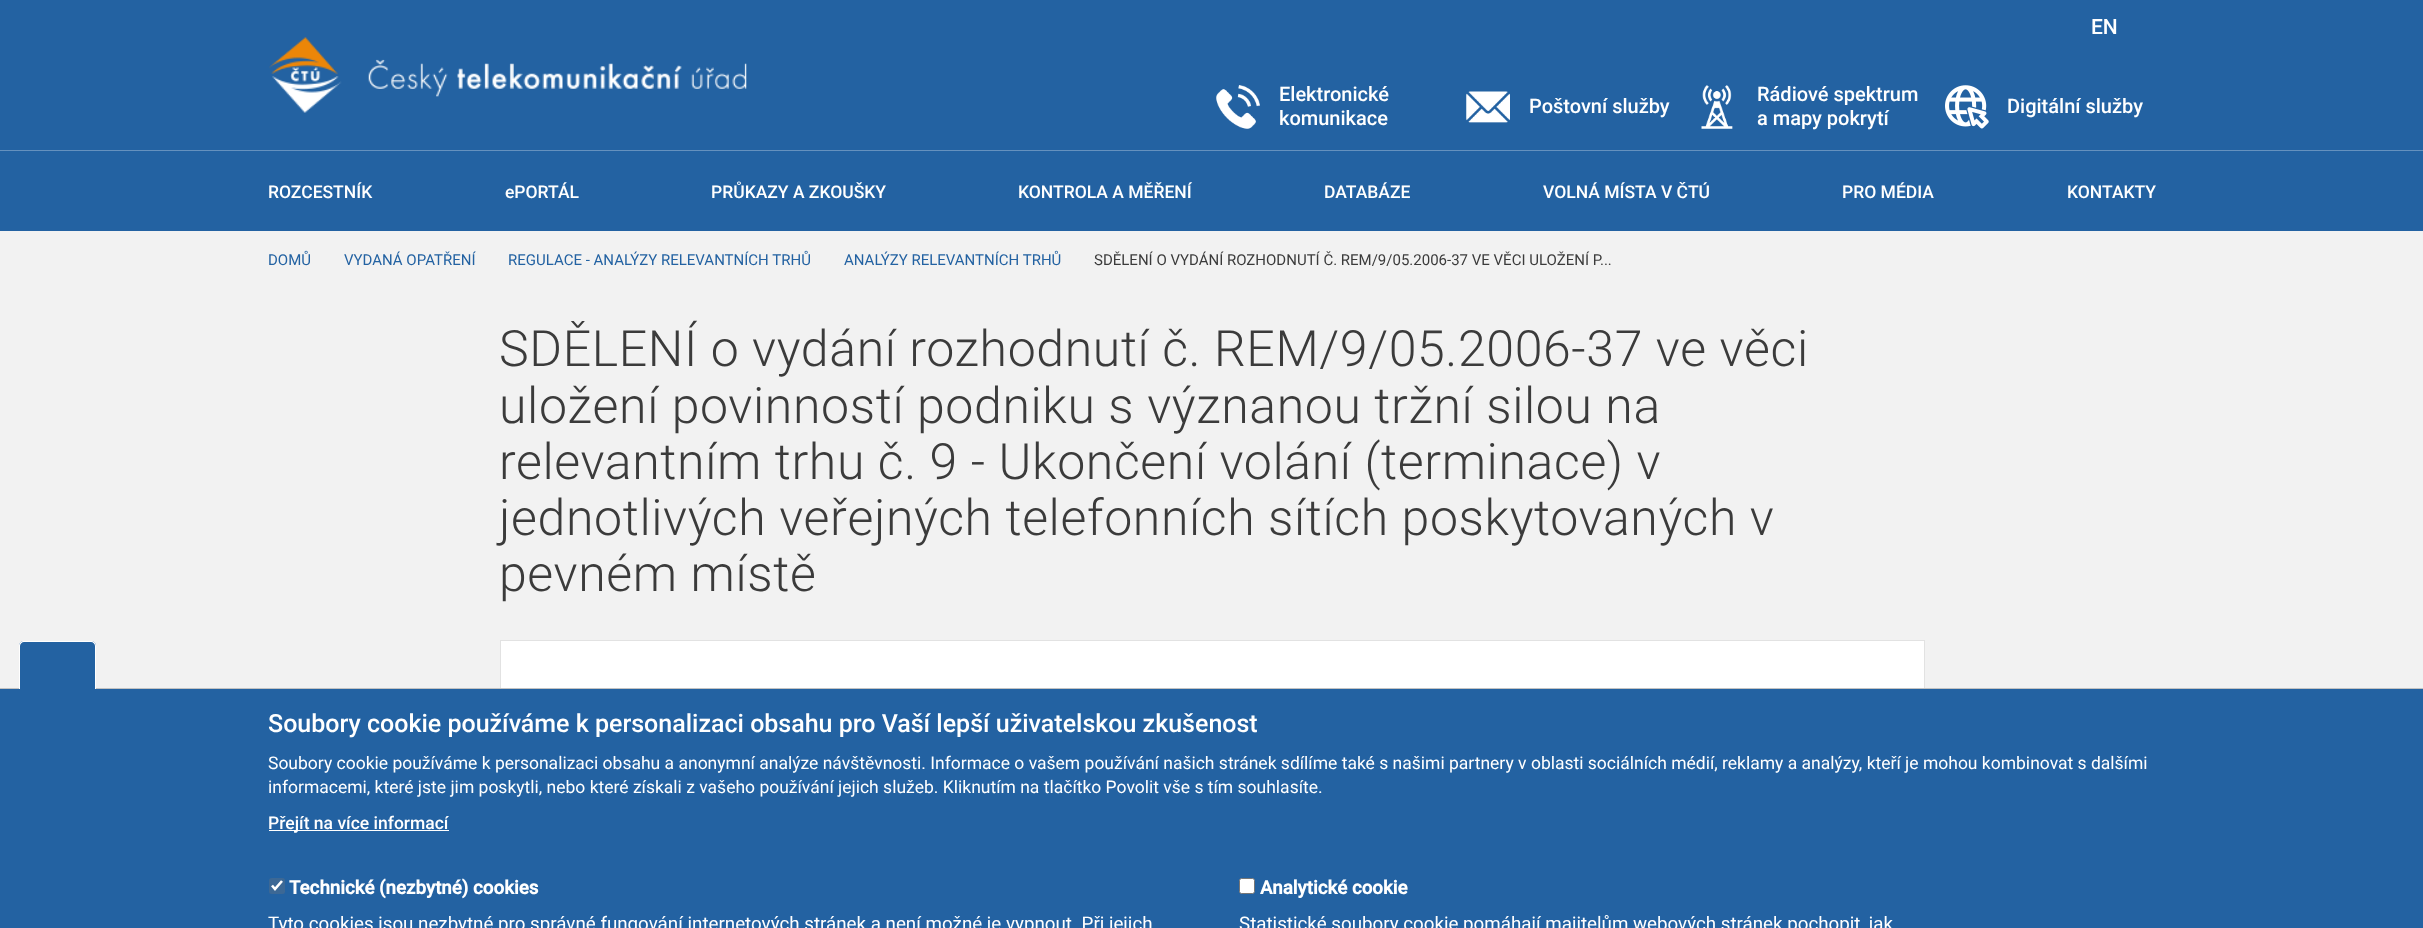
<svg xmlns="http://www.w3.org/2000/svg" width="2423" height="928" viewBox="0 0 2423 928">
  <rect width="100%" height="100%" fill="rgb(255,255,255)"/>
  <image x="0" y="271" width="2423" height="417" href="pic1.png"/>
  <rect x="0" y="0" width="2423" height="231" fill="rgb(35,98,162)"/>
  <image x="269" y="37" width="478" height="76" href="pic2.png"/>
  <text x="2091" y="34" font-family="Roboto" font-size="21" font-weight="500" fill="rgb(255,255,255)">EN</text>
  <image x="1216" y="85" width="44" height="44" href="pic3.png"/>
  <g font-family="Roboto" font-size="20" font-weight="500" fill="rgb(255,255,255)">
    <text>
      <tspan x="1279" y="101">Elektronické</tspan>
      <tspan x="1279" y="125">komunikace</tspan>
    </text>
  </g>
  <image x="1466" y="91" width="44" height="32" href="pic4.png"/>
  <text x="1529" y="113" font-family="Roboto" font-size="20" font-weight="500" fill="rgb(255,255,255)">Poštovní služby</text>
  <image x="1701" y="85" width="32" height="44" href="pic5.png"/>
  <g font-family="Roboto" font-size="20" font-weight="500" fill="rgb(255,255,255)">
    <text>
      <tspan x="1757" y="101">Rádiové spektrum</tspan>
      <tspan x="1757" y="125">a mapy pokrytí</tspan>
    </text>
  </g>
  <image x="1945" y="85" width="44" height="44" href="pic6.png"/>
  <text x="2007" y="113" font-family="Roboto" font-size="20" font-weight="500" fill="rgb(255,255,255)">Digitální služby</text>
  <rect x="0" y="150" width="2423" height="1" fill="rgb(101,145,190)"/>
  <g font-family="Roboto" font-size="17.5" font-weight="500" fill="rgb(255,255,255)">
    <text x="268" y="198">ROZCESTNÍK</text>
    <text x="505" y="198">ePORTÁL</text>
    <text x="711" y="198">PRŮKAZY A ZKOUŠKY</text>
    <text x="1018" y="198">KONTROLA A MĚŘENÍ</text>
    <text x="1324" y="198">DATABÁZE</text>
    <text x="1543" y="198">VOLNÁ MÍSTA V ČTÚ</text>
    <text x="1842" y="198">PRO MÉDIA</text>
    <text x="2067" y="198">KONTAKTY</text>
  </g>
  <rect x="0" y="231" width="2423" height="40" fill="rgb(242,242,242)"/>
  <g font-family="Roboto" font-size="15" fill="rgb(35,98,162)">
    <text x="268" y="265">DOMŮ</text>
    <text x="344" y="265">VYDANÁ OPATŘENÍ</text>
    <text x="508" y="265">REGULACE - ANALÝZY RELEVANTNÍCH TRHŮ</text>
    <text x="844" y="265">ANALÝZY RELEVANTNÍCH TRHŮ</text>
  </g>
  <text x="1094" y="265" font-family="Roboto" font-size="15" fill="rgb(59,59,59)">SDĚLENÍ O VYDÁNÍ ROZHODNUTÍ Č. REM/9/05.2006-37 VE VĚCI ULOŽENÍ P...</text>
  <g font-family="Roboto" font-size="50" font-weight="300" letter-spacing="0.62" fill="rgb(59,59,59)">
    <text>
      <tspan x="499" y="366">SDĚLENÍ o vydání rozhodnutí č. REM/9/05.2006-37 ve věci</tspan>
      <tspan x="499" y="423">uložení povinností podniku s význanou tržní silou na</tspan>
      <tspan x="499" y="479">relevantním trhu č. 9 - Ukončení volání (terminace) v</tspan>
      <tspan x="499" y="535">jednotlivých veřejných telefonních sítích poskytovaných v</tspan>
      <tspan x="499" y="591">pevném místě</tspan>
    </text>
  </g>
  <rect x="501" y="641" width="1423" height="47" fill="rgb(255,255,255)"/>
  <rect x="500.5" y="640.5" width="1424" height="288" fill="none" stroke="rgb(226,226,226)"/>
  <rect x="0" y="689" width="2423" height="239" fill="rgb(35,98,162)"/>
  <rect x="0" y="688" width="2423" height="1" fill="rgb(194,194,194)"/>
  <path d="M24 641H91C94 641 96 643 96 646V689H19V646C19 643 21 641 24 641Z" fill="rgb(35,98,162)"/>
  <path d="M24 641H91C94 641 96 643 96 646V689H19V646C19 643 21 641 24 641ZM24 642H91C93 642 95 644 95 646V689H20V646C20 644 22 642 24 642Z" fill="rgb(255,255,255)" fill-rule="evenodd"/>
  <text x="268" y="732" font-family="Roboto" font-size="25" font-weight="500" fill="rgb(255,255,255)">Soubory cookie používáme k personalizaci obsahu pro Vaší lepší uživatelskou zkušenost</text>
  <g font-family="Roboto" font-size="17.5" fill="rgb(255,255,255)">
    <text>
      <tspan x="268" y="769">Soubory cookie používáme k personalizaci obsahu a anonymní analýze návštěvnosti. Informace o vašem používání našich stránek sdílíme také s našimi partnery v oblasti sociálních médií, reklamy a analýzy, kteří je mohou kombinovat s dalšími</tspan>
      <tspan x="268" y="793">informacemi, které jste jim poskytli, nebo které získali z vašeho používání jejich služeb. Kliknutím na tlačítko Povolit vše s tím souhlasíte.</tspan>
    </text>
  </g>
  <rect x="269" y="830" width="180" height="1" fill="rgb(255,255,255)"/>
  <text x="268" y="829" font-family="Roboto" font-size="17.5" font-weight="500" fill="rgb(255,255,255)">Přejít na více informací</text>
  <rect x="269" y="878" width="16" height="16" rx="2.5" fill="rgb(60,104,149)"/>
  <path d="M272 885.5L275 889L282 881" fill="none" stroke="rgb(255,255,255)" stroke-width="2.6"/>
  <text x="289" y="894" font-family="Roboto" font-size="18.75" font-weight="bold" fill="rgb(255,255,255)">Technické (nezbytné) cookies</text>
  <text x="268" y="930" font-family="Roboto" font-size="18.75" fill="rgb(255,255,255)">Tyto cookies jsou nezbytné pro správné fungování internetových stránek a není možné je vypnout. Při jejich</text>
  <rect x="1239.5" y="878.5" width="15" height="15" rx="2" fill="rgb(255,255,255)" stroke="rgb(118,118,118)"/>
  <text x="1260" y="894" font-family="Roboto" font-size="18.75" font-weight="bold" fill="rgb(255,255,255)">Analytické cookie</text>
  <text x="1239" y="930" font-family="Roboto" font-size="18.75" fill="rgb(255,255,255)">Statistické soubory cookie pomáhají majitelům webových stránek pochopit, jak</text>
</svg>
